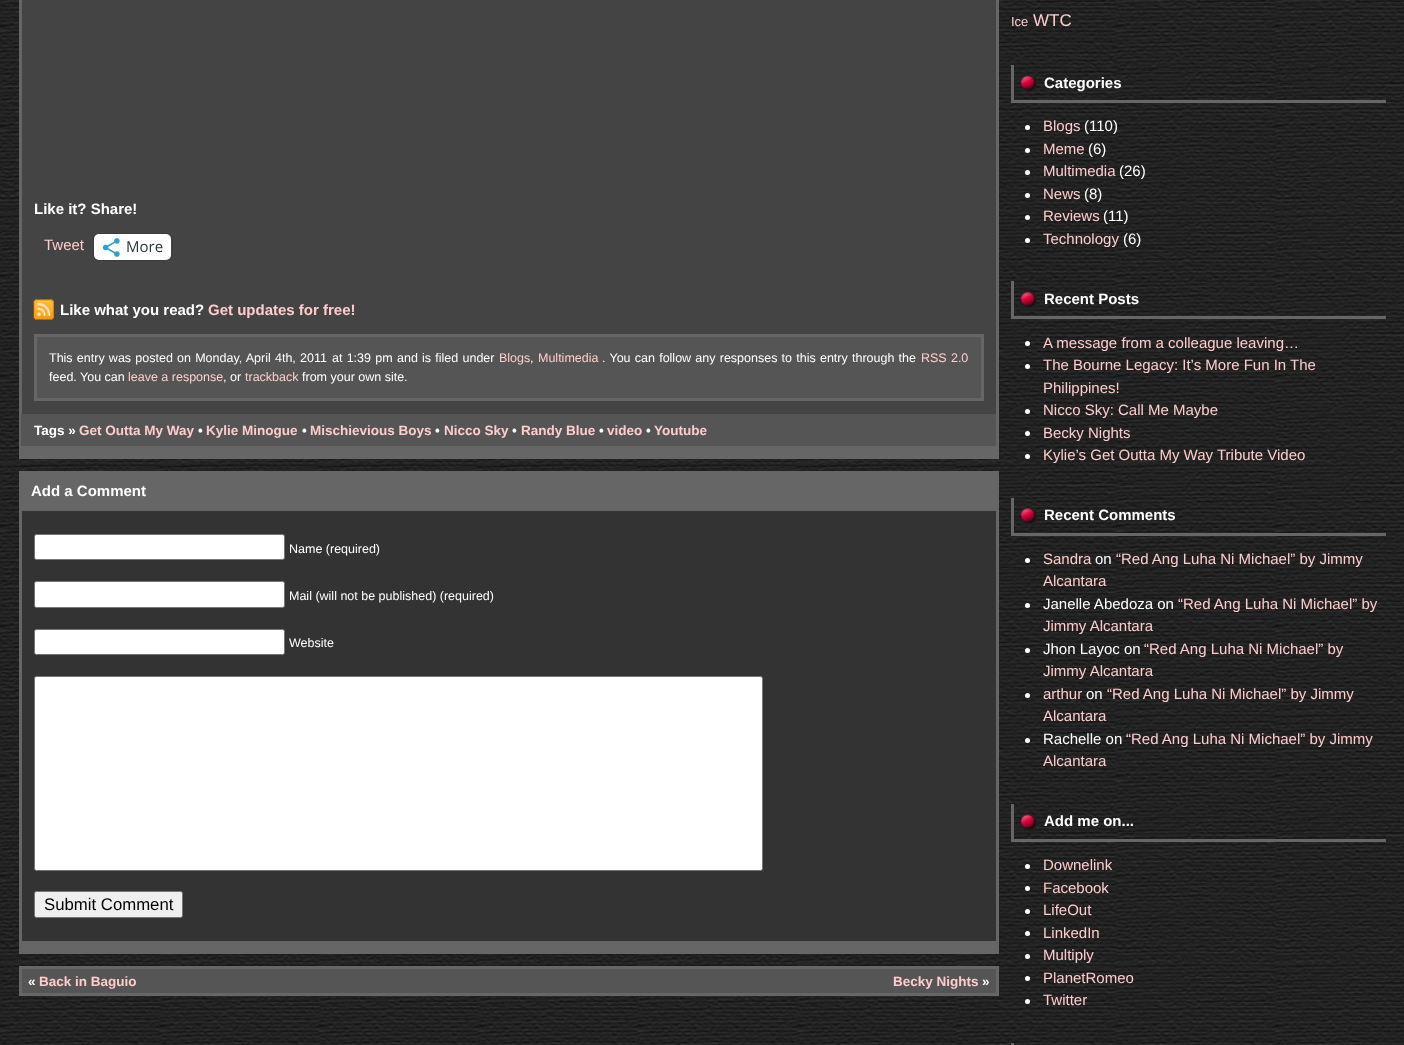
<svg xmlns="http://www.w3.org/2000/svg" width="1404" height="1045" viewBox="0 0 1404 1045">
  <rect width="100%" height="100%" fill="rgb(255,255,255)"/>
  <image x="0" y="0" width="1404" height="1045" href="pic1.png"/>
  <rect x="22" y="0" width="974" height="414" fill="rgb(68,68,68)"/>
  <rect x="996" y="0" width="3" height="446" fill="rgb(102,102,102)"/>
  <rect x="22" y="446" width="977" height="13" fill="rgb(102,102,102)"/>
  <rect x="19" y="0" width="3" height="459" fill="rgb(102,102,102)"/>
  <text x="34" y="214" font-family="Liberation Sans" font-size="15" font-weight="bold" fill="rgb(255,255,255)">Like it? Share!</text>
  <text x="44" y="250" font-family="Liberation Sans" font-size="15" fill="rgb(255,204,204)">Tweet</text>
  <rect x="93.5" y="233.5" width="79" height="27" rx="5.5" fill="none" stroke="rgb(60,60,60)"/>
  <rect x="94" y="234" width="77" height="26" rx="5" fill="rgb(255,255,255)"/>
  <image x="102" y="238" width="18" height="19" href="pic2.png"/>
  <text x="126" y="252" font-family="Open Sans" font-size="15" fill="rgb(44,51,56)">More</text>
  <image x="33" y="299" width="21" height="21" href="pic3.png"/>
  <text x="60" y="315" font-family="Liberation Sans" font-size="15" font-weight="bold" fill="rgb(255,255,255)">Like what you read?</text>
  <text x="208" y="315" font-family="Liberation Sans" font-size="15" font-weight="bold" fill="rgb(255,204,204)">Get updates for free!</text>
  <rect x="35.5" y="335.5" width="947" height="64" fill="rgb(85,85,85)" stroke="rgb(102,102,102)" stroke-width="3"/>
  <g font-family="Liberation Sans" font-size="12.5" fill="rgb(255,255,255)">
    <text x="49" y="362" word-spacing="0.75">This entry was posted on Monday, April 4th, 2011</text>
    <text x="332" y="362" word-spacing="0.75">at 1:39 pm</text>
    <text x="397" y="362" word-spacing="0.75">and is filed under</text>
  </g>
  <text x="499" y="362" font-family="Liberation Sans" font-size="12.5" fill="rgb(255,204,204)">Blogs</text>
  <text x="530" y="362" font-family="Liberation Sans" font-size="12.5" fill="rgb(255,255,255)">,</text>
  <text x="538" y="362" font-family="Liberation Sans" font-size="12.5" fill="rgb(255,204,204)">Multimedia</text>
  <text x="602" y="362" word-spacing="0.75" font-family="Liberation Sans" font-size="12.5" fill="rgb(255,255,255)">. You can follow any responses to this entry through the</text>
  <text x="921" y="362" word-spacing="0.75" font-family="Liberation Sans" font-size="12.5" fill="rgb(255,204,204)">RSS 2.0</text>
  <text x="49" y="381" font-family="Liberation Sans" font-size="12.5" fill="rgb(255,255,255)">feed. You can</text>
  <text x="128" y="381" font-family="Liberation Sans" font-size="12.5" fill="rgb(255,204,204)">leave a response</text>
  <text x="223" y="381" font-family="Liberation Sans" font-size="12.5" fill="rgb(255,255,255)">, or</text>
  <text x="245" y="381" font-family="Liberation Sans" font-size="12.5" fill="rgb(255,204,204)">trackback</text>
  <text x="302" y="381" font-family="Liberation Sans" font-size="12.5" fill="rgb(255,255,255)">from your own site.</text>
  <rect x="21" y="414" width="975" height="32" fill="rgb(85,85,85)"/>
  <text x="34" y="435" font-family="Liberation Sans" font-size="13.5" font-weight="bold" fill="rgb(255,255,255)">Tags »</text>
  <text x="79" y="435" font-family="Liberation Sans" font-size="13.5" font-weight="bold" fill="rgb(255,204,204)">Get Outta My Way</text>
  <text x="198" y="435" font-family="Liberation Sans" font-size="13.5" font-weight="bold" fill="rgb(255,255,255)">•</text>
  <text x="206" y="435" font-family="Liberation Sans" font-size="13.5" font-weight="bold" fill="rgb(255,204,204)">Kylie Minogue</text>
  <text x="302" y="435" font-family="Liberation Sans" font-size="13.5" font-weight="bold" fill="rgb(255,255,255)">•</text>
  <text x="310" y="435" font-family="Liberation Sans" font-size="13.5" font-weight="bold" fill="rgb(255,204,204)">Mischievious Boys</text>
  <text x="435" y="435" font-family="Liberation Sans" font-size="13.5" font-weight="bold" fill="rgb(255,255,255)">•</text>
  <text x="444" y="435" font-family="Liberation Sans" font-size="13.5" font-weight="bold" fill="rgb(255,204,204)">Nicco Sky</text>
  <text x="512" y="435" font-family="Liberation Sans" font-size="13.5" font-weight="bold" fill="rgb(255,255,255)">•</text>
  <text x="521" y="435" font-family="Liberation Sans" font-size="13.5" font-weight="bold" fill="rgb(255,204,204)">Randy Blue</text>
  <text x="599" y="435" font-family="Liberation Sans" font-size="13.5" font-weight="bold" fill="rgb(255,255,255)">•</text>
  <text x="607" y="435" font-family="Liberation Sans" font-size="13.5" font-weight="bold" fill="rgb(255,204,204)">video</text>
  <text x="646" y="435" font-family="Liberation Sans" font-size="13.5" font-weight="bold" fill="rgb(255,255,255)">•</text>
  <text x="654" y="435" font-family="Liberation Sans" font-size="13.5" font-weight="bold" fill="rgb(255,204,204)">Youtube</text>
  <rect x="19" y="471" width="980" height="40" fill="rgb(102,102,102)"/>
  <text x="31" y="496" font-family="Liberation Sans" font-size="15" font-weight="bold" fill="rgb(255,255,255)">Add a Comment</text>
  <rect x="22" y="511" width="974" height="430" fill="rgb(51,51,51)"/>
  <rect x="996" y="511" width="3" height="430" fill="rgb(102,102,102)"/>
  <rect x="22" y="941" width="977" height="13" fill="rgb(102,102,102)"/>
  <rect x="19" y="511" width="3" height="443" fill="rgb(102,102,102)"/>
  <rect x="34.5" y="534.5" width="250" height="25" rx="2" fill="rgb(255,255,255)" stroke="rgb(118,118,118)"/>
  <text x="289" y="553" font-family="Liberation Sans" font-size="12.5" fill="rgb(255,255,255)">Name (required)</text>
  <rect x="34.5" y="581.5" width="250" height="26" rx="2" fill="rgb(255,255,255)" stroke="rgb(118,118,118)"/>
  <text x="289" y="600" font-family="Liberation Sans" font-size="12.5" fill="rgb(255,255,255)">Mail (will not be published) (required)</text>
  <rect x="34.5" y="629.5" width="250" height="25" rx="2" fill="rgb(255,255,255)" stroke="rgb(118,118,118)"/>
  <text x="289" y="647" font-family="Liberation Sans" font-size="12.5" fill="rgb(255,255,255)">Website</text>
  <rect x="34.5" y="676.5" width="728" height="194" rx="2" fill="rgb(255,255,255)" stroke="rgb(118,118,118)"/>
  <rect x="34.5" y="891.5" width="148" height="26" rx="2" fill="rgb(239,239,239)" stroke="rgb(118,118,118)"/>
  <text x="44" y="910" font-family="Liberation Sans" font-size="16.75" fill="rgb(0,0,0)">Submit Comment</text>
  <rect x="20.5" y="967.5" width="977" height="27" fill="rgb(85,85,85)" stroke="rgb(102,102,102)" stroke-width="3"/>
  <text x="28" y="986" font-family="Liberation Sans" font-size="13.5" font-weight="bold" fill="rgb(255,255,255)">«</text>
  <g font-family="Liberation Sans" font-size="13.5" font-weight="bold" fill="rgb(255,204,204)">
    <text x="39" y="986">Back in Baguio</text>
    <text x="893" y="986">Becky Nights</text>
  </g>
  <text x="982" y="986" font-family="Liberation Sans" font-size="13.5" font-weight="bold" fill="rgb(255,255,255)">»</text>
  <text x="1011" y="26" font-family="Liberation Sans" font-size="13" fill="rgb(255,204,204)">Ice</text>
  <text x="1033" y="26" font-family="Liberation Sans" font-size="17" fill="rgb(255,204,204)">WTC</text>
  <image x="1021" y="75" width="16" height="17" href="pic4.png"/>
  <rect x="1011" y="100" width="375" height="3" fill="rgb(102,102,102)"/>
  <rect x="1011" y="65" width="3" height="38" fill="rgb(102,102,102)"/>
  <text x="1044" y="88" font-family="Liberation Sans" font-size="15" font-weight="bold" fill="rgb(255,255,255)">Categories</text>
  <circle cx="1027.5" cy="127.5" r="2.5" fill="rgb(255,255,255)"/>
  <text x="1043" y="131" font-family="Liberation Sans" font-size="15" fill="rgb(255,204,204)">Blogs</text>
  <text x="1084" y="131" font-family="Liberation Sans" font-size="15" fill="rgb(255,255,255)">(110)</text>
  <circle cx="1027.5" cy="150.5" r="2.5" fill="rgb(255,255,255)"/>
  <text x="1043" y="154" font-family="Liberation Sans" font-size="15" fill="rgb(255,204,204)">Meme</text>
  <text x="1088" y="154" font-family="Liberation Sans" font-size="15" fill="rgb(255,255,255)">(6)</text>
  <circle cx="1027.5" cy="172.5" r="2.5" fill="rgb(255,255,255)"/>
  <text x="1043" y="176" font-family="Liberation Sans" font-size="15" fill="rgb(255,204,204)">Multimedia</text>
  <text x="1119" y="176" font-family="Liberation Sans" font-size="15" fill="rgb(255,255,255)">(26)</text>
  <circle cx="1027.5" cy="195.5" r="2.5" fill="rgb(255,255,255)"/>
  <text x="1043" y="199" font-family="Liberation Sans" font-size="15" fill="rgb(255,204,204)">News</text>
  <text x="1084" y="199" font-family="Liberation Sans" font-size="15" fill="rgb(255,255,255)">(8)</text>
  <circle cx="1027.5" cy="217.5" r="2.5" fill="rgb(255,255,255)"/>
  <text x="1043" y="221" font-family="Liberation Sans" font-size="15" fill="rgb(255,204,204)">Reviews</text>
  <text x="1103" y="221" font-family="Liberation Sans" font-size="15" fill="rgb(255,255,255)">(11)</text>
  <circle cx="1027.5" cy="240.5" r="2.5" fill="rgb(255,255,255)"/>
  <text x="1043" y="244" font-family="Liberation Sans" font-size="15" fill="rgb(255,204,204)">Technology</text>
  <text x="1123" y="244" font-family="Liberation Sans" font-size="15" fill="rgb(255,255,255)">(6)</text>
  <image x="1021" y="292" width="16" height="16" href="pic5.png"/>
  <rect x="1011" y="316" width="375" height="3" fill="rgb(102,102,102)"/>
  <rect x="1011" y="281" width="3" height="38" fill="rgb(102,102,102)"/>
  <text x="1044" y="304" font-family="Liberation Sans" font-size="15" font-weight="bold" fill="rgb(255,255,255)">Recent Posts</text>
  <circle cx="1027.5" cy="343.5" r="2.5" fill="rgb(255,255,255)"/>
  <text x="1043" y="348" font-family="Liberation Sans" font-size="15" fill="rgb(255,204,204)">A message from a colleague leaving…</text>
  <circle cx="1027.5" cy="366.5" r="2.5" fill="rgb(255,255,255)"/>
  <g font-family="Liberation Sans" font-size="15" fill="rgb(255,204,204)">
    <text>
      <tspan x="1043" y="370">The Bourne Legacy: It’s More Fun In The</tspan>
      <tspan x="1043" y="393">Philippines!</tspan>
    </text>
  </g>
  <circle cx="1027.5" cy="411.5" r="2.5" fill="rgb(255,255,255)"/>
  <text x="1043" y="415" font-family="Liberation Sans" font-size="15" fill="rgb(255,204,204)">Nicco Sky: Call Me Maybe</text>
  <circle cx="1027.5" cy="433.5" r="2.5" fill="rgb(255,255,255)"/>
  <text x="1043" y="438" font-family="Liberation Sans" font-size="15" fill="rgb(255,204,204)">Becky Nights</text>
  <circle cx="1027.5" cy="456.5" r="2.5" fill="rgb(255,255,255)"/>
  <text x="1043" y="460" font-family="Liberation Sans" font-size="15" fill="rgb(255,204,204)">Kylie’s Get Outta My Way Tribute Video</text>
  <image x="1021" y="508" width="16" height="16" href="pic6.png"/>
  <rect x="1011" y="533" width="375" height="3" fill="rgb(102,102,102)"/>
  <rect x="1011" y="498" width="3" height="37" fill="rgb(102,102,102)"/>
  <text x="1044" y="520" font-family="Liberation Sans" font-size="15" font-weight="bold" fill="rgb(255,255,255)">Recent Comments</text>
  <circle cx="1027.5" cy="560.5" r="2.5" fill="rgb(255,255,255)"/>
  <text x="1043" y="564" font-family="Liberation Sans" font-size="15" fill="rgb(255,204,204)">Sandra</text>
  <text x="1095" y="564" font-family="Liberation Sans" font-size="15" fill="rgb(255,255,255)">on</text>
  <g font-family="Liberation Sans" font-size="15" fill="rgb(255,204,204)">
    <text x="1116" y="564">“Red Ang Luha Ni Michael” by Jimmy</text>
    <text x="1043" y="586">Alcantara</text>
  </g>
  <circle cx="1027.5" cy="605.5" r="2.5" fill="rgb(255,255,255)"/>
  <text x="1043" y="609" font-family="Liberation Sans" font-size="15" fill="rgb(255,255,255)">Janelle Abedoza on</text>
  <g font-family="Liberation Sans" font-size="15" fill="rgb(255,204,204)">
    <text x="1178" y="609">“Red Ang Luha Ni Michael” by</text>
    <text x="1043" y="631">Jimmy Alcantara</text>
  </g>
  <circle cx="1027.5" cy="650.5" r="2.5" fill="rgb(255,255,255)"/>
  <text x="1043" y="654" font-family="Liberation Sans" font-size="15" fill="rgb(255,255,255)">Jhon Layoc on</text>
  <g font-family="Liberation Sans" font-size="15" fill="rgb(255,204,204)">
    <text x="1144" y="654">“Red Ang Luha Ni Michael” by</text>
    <text x="1043" y="676">Jimmy Alcantara</text>
  </g>
  <circle cx="1027.5" cy="695.5" r="2.5" fill="rgb(255,255,255)"/>
  <text x="1043" y="699" font-family="Liberation Sans" font-size="15" fill="rgb(255,204,204)">arthur</text>
  <text x="1086" y="699" font-family="Liberation Sans" font-size="15" fill="rgb(255,255,255)">on</text>
  <g font-family="Liberation Sans" font-size="15" fill="rgb(255,204,204)">
    <text x="1107" y="699">“Red Ang Luha Ni Michael” by Jimmy</text>
    <text x="1043" y="721">Alcantara</text>
  </g>
  <circle cx="1027.5" cy="740.5" r="2.5" fill="rgb(255,255,255)"/>
  <text x="1043" y="744" font-family="Liberation Sans" font-size="15" fill="rgb(255,255,255)">Rachelle on</text>
  <g font-family="Liberation Sans" font-size="15" fill="rgb(255,204,204)">
    <text x="1126" y="744">“Red Ang Luha Ni Michael” by Jimmy</text>
    <text x="1043" y="766">Alcantara</text>
  </g>
  <image x="1021" y="814" width="16" height="17" href="pic7.png"/>
  <rect x="1011" y="839" width="375" height="3" fill="rgb(102,102,102)"/>
  <rect x="1011" y="804" width="3" height="37" fill="rgb(102,102,102)"/>
  <text x="1044" y="826" font-family="Liberation Sans" font-size="15" font-weight="bold" fill="rgb(255,255,255)">Add me on...</text>
  <circle cx="1027.5" cy="866.5" r="2.5" fill="rgb(255,255,255)"/>
  <text x="1043" y="870" font-family="Liberation Sans" font-size="15" fill="rgb(255,204,204)">Downelink</text>
  <circle cx="1027.5" cy="888.5" r="2.5" fill="rgb(255,255,255)"/>
  <text x="1043" y="893" font-family="Liberation Sans" font-size="15" fill="rgb(255,204,204)">Facebook</text>
  <circle cx="1027.5" cy="911.5" r="2.5" fill="rgb(255,255,255)"/>
  <text x="1043" y="915" font-family="Liberation Sans" font-size="15" fill="rgb(255,204,204)">LifeOut</text>
  <circle cx="1027.5" cy="933.5" r="2.5" fill="rgb(255,255,255)"/>
  <text x="1043" y="938" font-family="Liberation Sans" font-size="15" fill="rgb(255,204,204)">LinkedIn</text>
  <circle cx="1027.5" cy="956.5" r="2.5" fill="rgb(255,255,255)"/>
  <text x="1043" y="960" font-family="Liberation Sans" font-size="15" fill="rgb(255,204,204)">Multiply</text>
  <circle cx="1027.5" cy="978.5" r="2.5" fill="rgb(255,255,255)"/>
  <text x="1043" y="983" font-family="Liberation Sans" font-size="15" fill="rgb(255,204,204)">PlanetRomeo</text>
  <circle cx="1027.5" cy="1001.5" r="2.5" fill="rgb(255,255,255)"/>
  <text x="1043" y="1005" font-family="Liberation Sans" font-size="15" fill="rgb(255,204,204)">Twitter</text>
  <rect x="1011" y="1043" width="3" height="2" fill="rgb(102,102,102)"/>
</svg>
